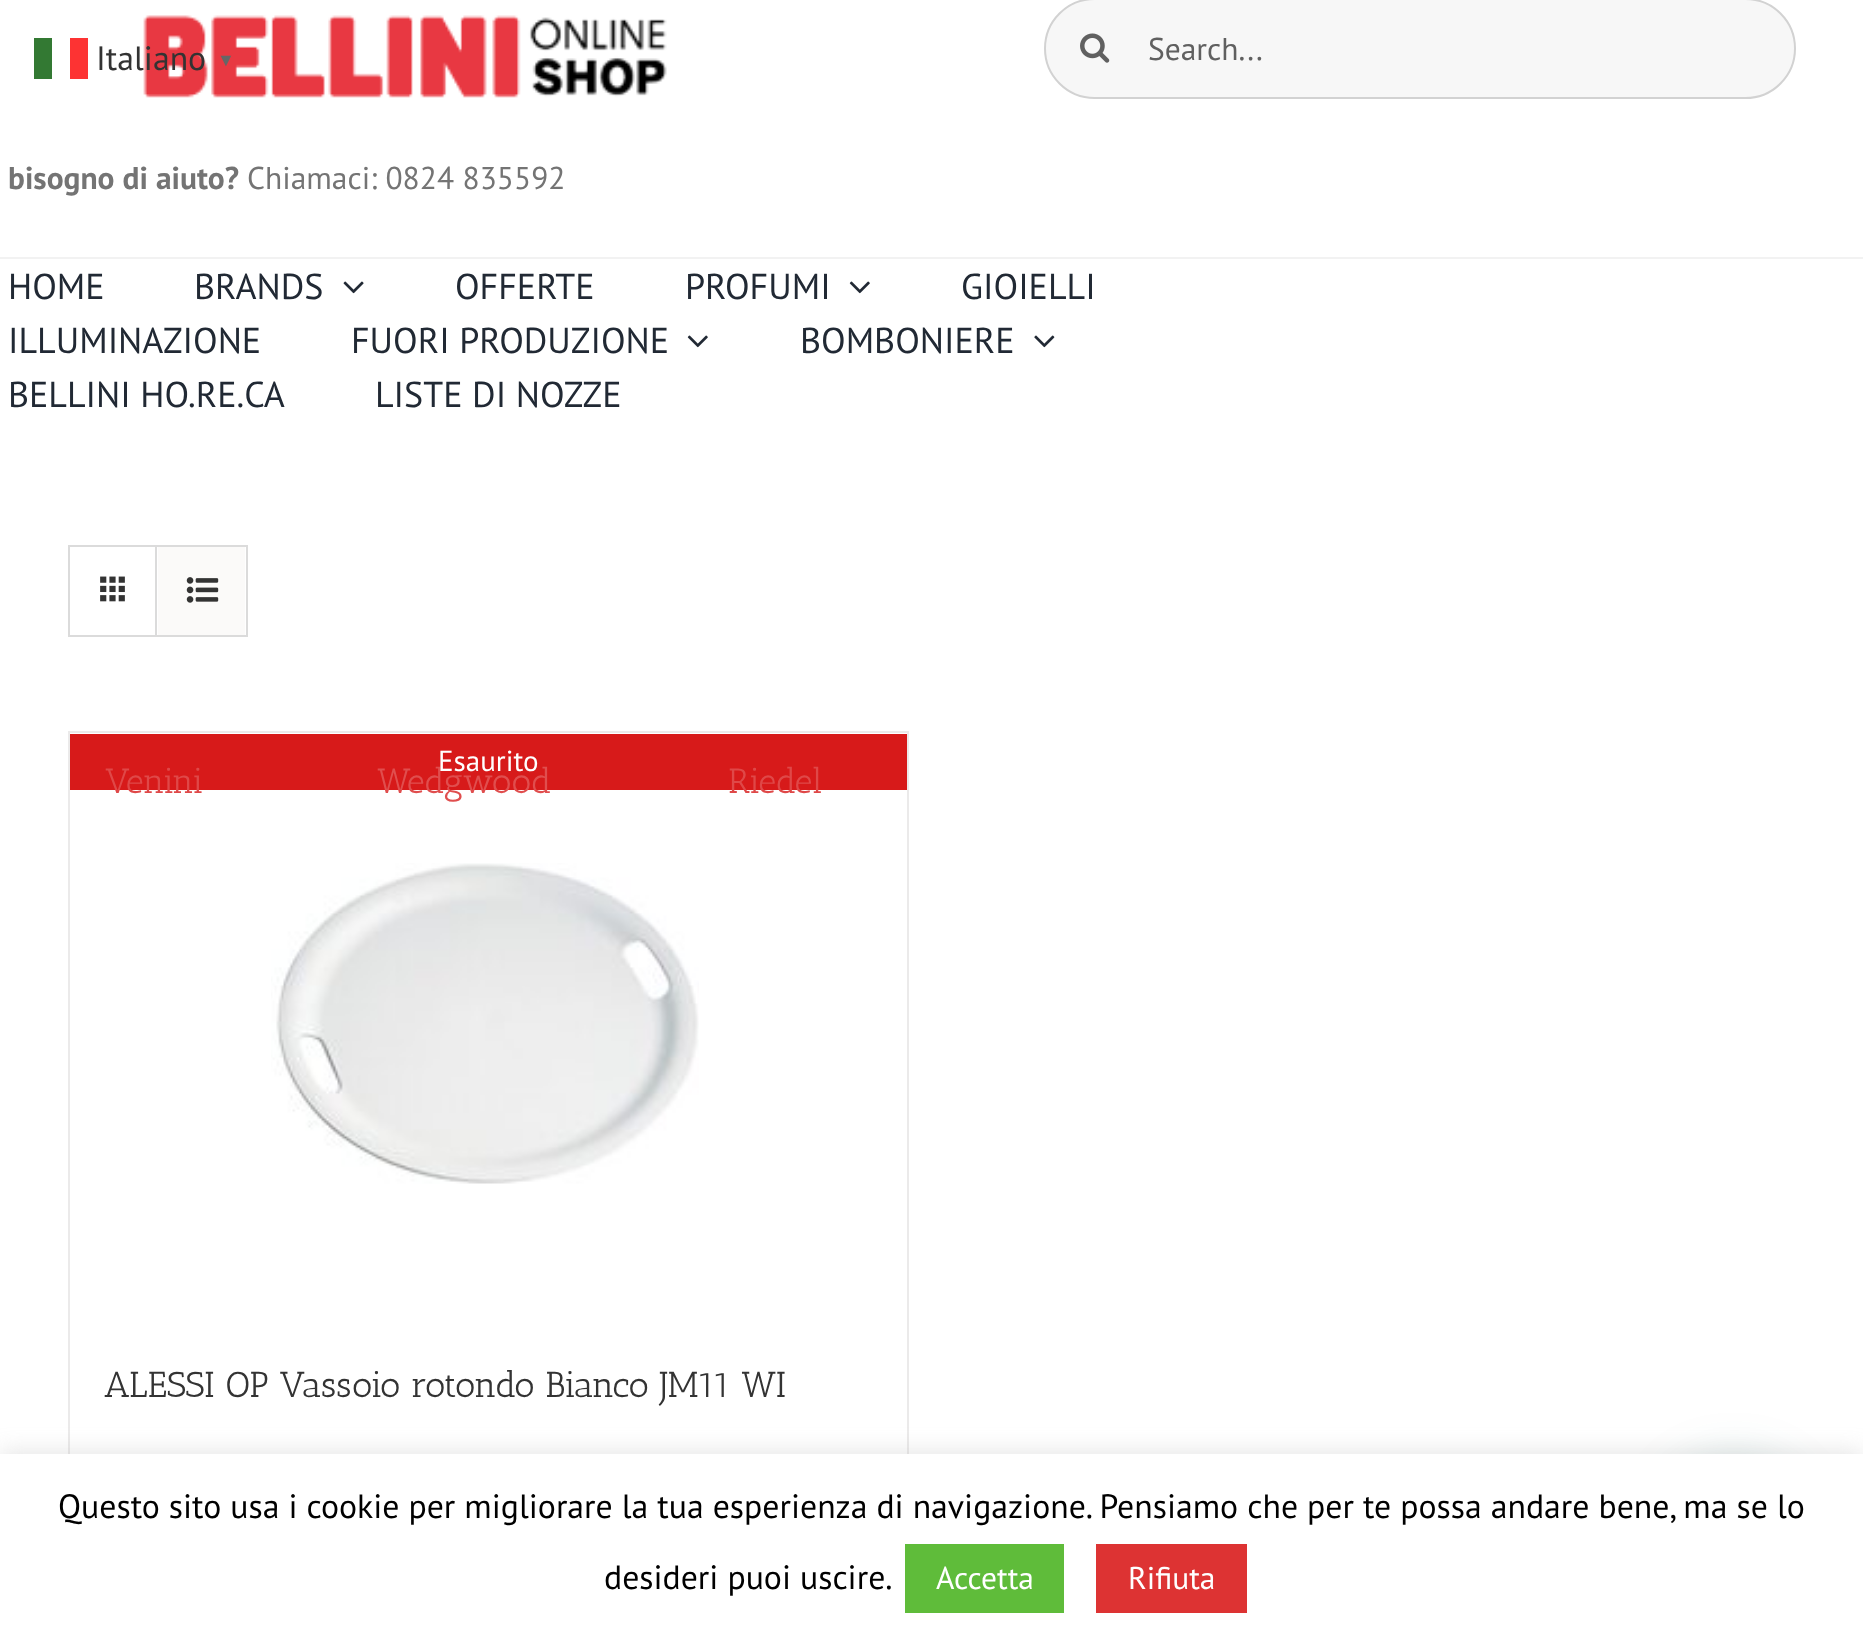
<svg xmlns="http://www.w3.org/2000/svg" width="1863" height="1650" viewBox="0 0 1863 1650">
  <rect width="100%" height="100%" fill="rgb(255,255,255)"/>
  <rect x="0" y="257" width="1863" height="2" fill="rgb(242,242,242)"/>
  <image x="143" y="15" width="524" height="83" href="pic1.png"/>
  <rect x="1045" y="-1" width="750" height="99" rx="49.5" fill="rgb(247,247,247)" stroke="rgb(210,210,210)" stroke-width="2"/>
  <image x="1080" y="33" width="30" height="30" href="pic2.png"/>
  <text x="1148" y="60" font-family="PT Sans" font-size="31.5" fill="rgb(96,96,96)">Search...</text>
  <text x="8" y="189" font-family="PT Sans" font-size="31.5" font-weight="bold" fill="rgb(116,116,116)">bisogno di aiuto?</text>
  <text x="247" y="189" font-family="PT Sans" font-size="31.5" fill="rgb(116,116,116)">Chiamaci: 0824 835592</text>
  <g font-family="PT Sans" font-size="36" fill="rgb(33,41,52)">
    <text x="8" y="299">HOME</text>
    <text x="194" y="299">BRANDS</text>
  </g>
  <image x="343" y="281" width="21" height="13" href="pic3.png"/>
  <rect x="70" y="734" width="837" height="56" fill="rgb(215,26,26)"/>
  <text x="105" y="793" font-family="Antic Slab" font-size="35" fill="rgb(223,72,72)">Venini</text>
  <text x="377" y="793" font-family="Antic Slab" font-size="35" fill="rgb(224,78,78)">Wedgwood</text>
  <text x="728" y="793" font-family="Antic Slab" font-size="35" fill="rgb(223,72,72)">Riedel</text>
  <g font-family="PT Sans" font-size="36" fill="rgb(33,41,52)">
    <text x="455" y="299">OFFERTE</text>
    <text x="685" y="299">PROFUMI</text>
  </g>
  <image x="849" y="281" width="21" height="13" href="pic4.png"/>
  <g font-family="PT Sans" font-size="36" fill="rgb(33,41,52)">
    <text x="961" y="299">GIOIELLI</text>
    <text x="8" y="353">ILLUMINAZIONE</text>
    <text x="351" y="353">FUORI PRODUZIONE</text>
  </g>
  <image x="687" y="335" width="21" height="13" href="pic4.png"/>
  <text x="800" y="353" font-family="PT Sans" font-size="36" fill="rgb(33,41,52)">BOMBONIERE</text>
  <image x="1034" y="335" width="21" height="13" href="pic5.png"/>
  <g font-family="PT Sans" font-size="36" fill="rgb(33,41,52)">
    <text x="8" y="407">BELLINI HO.RE.CA</text>
    <text x="375" y="407">LISTE DI NOZZE</text>
  </g>
  <rect x="69" y="546" width="178" height="90" fill="none" stroke="rgb(219,219,219)" stroke-width="2"/>
  <rect x="155" y="547" width="2" height="88" fill="rgb(219,219,219)"/>
  <image x="100" y="576" width="25" height="26" href="pic6.png"/>
  <rect x="158" y="547" width="87" height="88" fill="rgb(251,250,249)"/>
  <image x="186" y="577" width="33" height="26" href="pic7.png"/>
  <rect x="68" y="731" width="841" height="2" fill="rgb(235,234,234)"/>
  <rect x="907" y="731" width="2" height="723" fill="rgb(235,234,234)"/>
  <rect x="68" y="731" width="2" height="723" fill="rgb(235,234,234)"/>
  <text x="438" y="771" font-family="PT Sans" font-size="29" fill="rgb(255,255,255)">Esaurito</text>
  <image x="271" y="863" width="428" height="321" href="pic8.png"/>
  <text x="104" y="1397" font-family="Antic Slab" font-size="36" fill="rgb(51,51,51)">ALESSI OP Vassoio rotondo Bianco JM11 WI</text>
  <text x="96" y="70" font-family="PT Sans" font-size="33.75" fill="rgb(51,51,51)">Italiano</text>
  <rect x="34" y="38" width="18" height="41" fill="rgb(51,121,51)"/>
  <rect x="70" y="38" width="18" height="41" fill="rgb(253,51,51)"/>
  <text x="217" y="66" font-family="Liberation Serif" font-size="18" font-weight="bold" fill="rgb(102,102,102)">▼</text>
  <rect x="1667" y="1467" width="135" height="135" rx="67.5" fill="rgba(7,94,84,0.24)" filter="blur(27px)"/>
  <rect x="0" y="1451" width="1863" height="198" fill="rgba(172,171,171,0.3)" filter="blur(11px)"/>
  <rect x="0" y="1454" width="1863" height="196" fill="rgb(255,255,255)"/>
  <g font-family="PT Sans" font-size="33.75" fill="rgb(0,0,0)">
    <text x="58" y="1518">Questo sito usa i cookie per migliorare la tua esperienza di navigazione. Pensiamo che per te possa andare bene, ma se lo</text>
    <text x="604" y="1589">desideri puoi uscire.</text>
  </g>
  <rect x="905" y="1544" width="159" height="69" fill="rgb(95,188,58)"/>
  <text x="936" y="1589" font-family="PT Sans" font-size="31.5" fill="rgb(255,255,255)">Accetta</text>
  <rect x="1096" y="1544" width="151" height="69" fill="rgb(221,51,51)"/>
  <text x="1128" y="1589" font-family="PT Sans" font-size="31.5" fill="rgb(255,255,255)">Rifiuta</text>
</svg>
